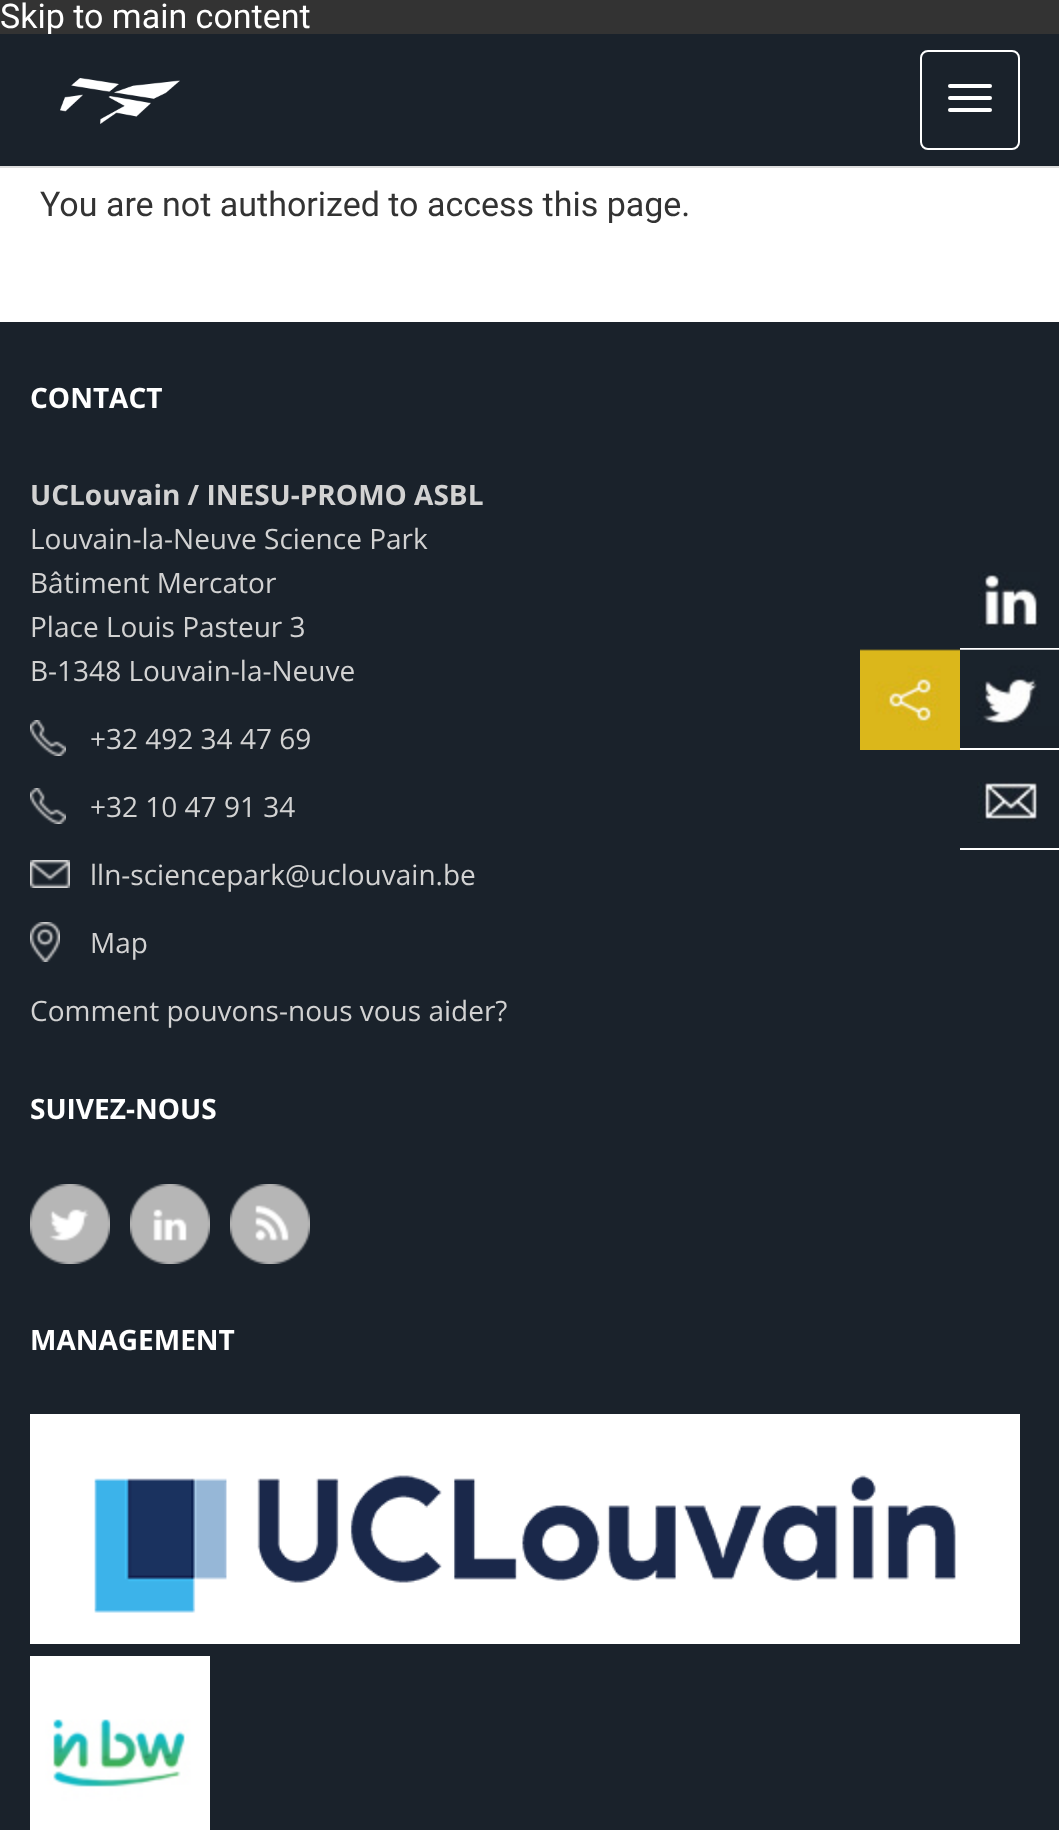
<svg xmlns="http://www.w3.org/2000/svg" width="1059" height="1830" viewBox="0 0 1059 1830">
  <rect width="100%" height="100%" fill="rgb(51,51,51)"/>
  <text x="0" y="28" font-family="Roboto" font-size="34" fill="rgb(255,255,255)">Skip to main content</text>
  <rect x="0" y="168" width="1059" height="154" fill="rgb(255,255,255)"/>
  <rect x="0" y="34" width="1059" height="132" fill="rgb(26,34,43)"/>
  <image x="60" y="78" width="120" height="46" href="pic1.png"/>
  <rect x="921" y="51" width="98" height="98" rx="7" fill="none" stroke="rgb(255,255,255)" stroke-width="2"/>
  <rect x="948" y="84" width="44" height="4" rx="2" fill="rgb(255,255,255)"/>
  <rect x="948" y="96" width="44" height="4" rx="2" fill="rgb(255,255,255)"/>
  <rect x="948" y="108" width="44" height="4" rx="2" fill="rgb(255,255,255)"/>
  <rect x="0" y="166" width="1059" height="2" fill="rgb(221,221,221)"/>
  <text x="40" y="216" font-family="Roboto" font-size="34" fill="rgb(51,51,51)">You are not authorized to access this page.</text>
  <rect x="0" y="322" width="1059" height="1508" fill="rgb(26,34,43)"/>
  <text x="30" y="408" font-family="Open Sans" font-size="28" font-weight="bold" fill="rgb(255,255,255)">CONTACT</text>
  <text x="30" y="505" font-family="Open Sans" font-size="28" font-weight="bold" fill="rgb(210,210,210)">UCLouvain / INESU-PROMO ASBL</text>
  <g font-family="Open Sans" font-size="28" fill="rgb(210,210,210)">
    <text>
      <tspan x="30" y="549">Louvain-la-Neuve Science Park</tspan>
      <tspan x="30" y="593">Bâtiment Mercator</tspan>
      <tspan x="30" y="637">Place Louis Pasteur 3</tspan>
      <tspan x="30" y="681">B-1348 Louvain-la-Neuve</tspan>
    </text>
  </g>
  <image x="30" y="720" width="36" height="36" href="pic2.png"/>
  <text x="90" y="749" font-family="Open Sans" font-size="28" fill="rgb(210,210,210)">+32 492 34 47 69</text>
  <image x="30" y="788" width="36" height="36" href="pic2.png"/>
  <text x="90" y="817" font-family="Open Sans" font-size="28" fill="rgb(210,210,210)">+32 10 47 91 34</text>
  <image x="30" y="860" width="40" height="28" href="pic3.png"/>
  <text x="90" y="885" font-family="Open Sans" font-size="28" fill="rgb(210,210,210)">lln-sciencepark@uclouvain.be</text>
  <image x="30" y="922" width="30" height="40" href="pic4.png"/>
  <g font-family="Open Sans" font-size="28" fill="rgb(210,210,210)">
    <text x="90" y="953">Map</text>
    <text x="30" y="1021">Comment pouvons-nous vous aider?</text>
  </g>
  <text x="30" y="1119" font-family="Open Sans" font-size="28" font-weight="bold" fill="rgb(255,255,255)">SUIVEZ-NOUS</text>
  <image x="30" y="1184" width="80" height="80" href="pic5.png"/>
  <image x="130" y="1184" width="80" height="80" href="pic6.png"/>
  <image x="230" y="1184" width="80" height="80" href="pic7.png"/>
  <text x="30" y="1350" font-family="Open Sans" font-size="28" font-weight="bold" fill="rgb(255,255,255)">MANAGEMENT</text>
  <image x="30" y="1414" width="990" height="230" href="pic8.png"/>
  <image x="30" y="1656" width="180" height="174" href="pic9.png"/>
  <image x="860" y="649" width="100" height="101" href="pic10.png"/>
  <image x="978" y="572" width="62" height="58" href="pic11.png"/>
  <rect x="960" y="648" width="99" height="2" fill="rgb(255,255,255)"/>
  <image x="960" y="649" width="99" height="77" href="pic12.png"/>
  <rect x="960" y="748" width="99" height="2" fill="rgb(255,255,255)"/>
  <image x="977" y="782" width="61" height="41" href="pic13.png"/>
  <rect x="960" y="848" width="99" height="2" fill="rgb(255,255,255)"/>
</svg>
